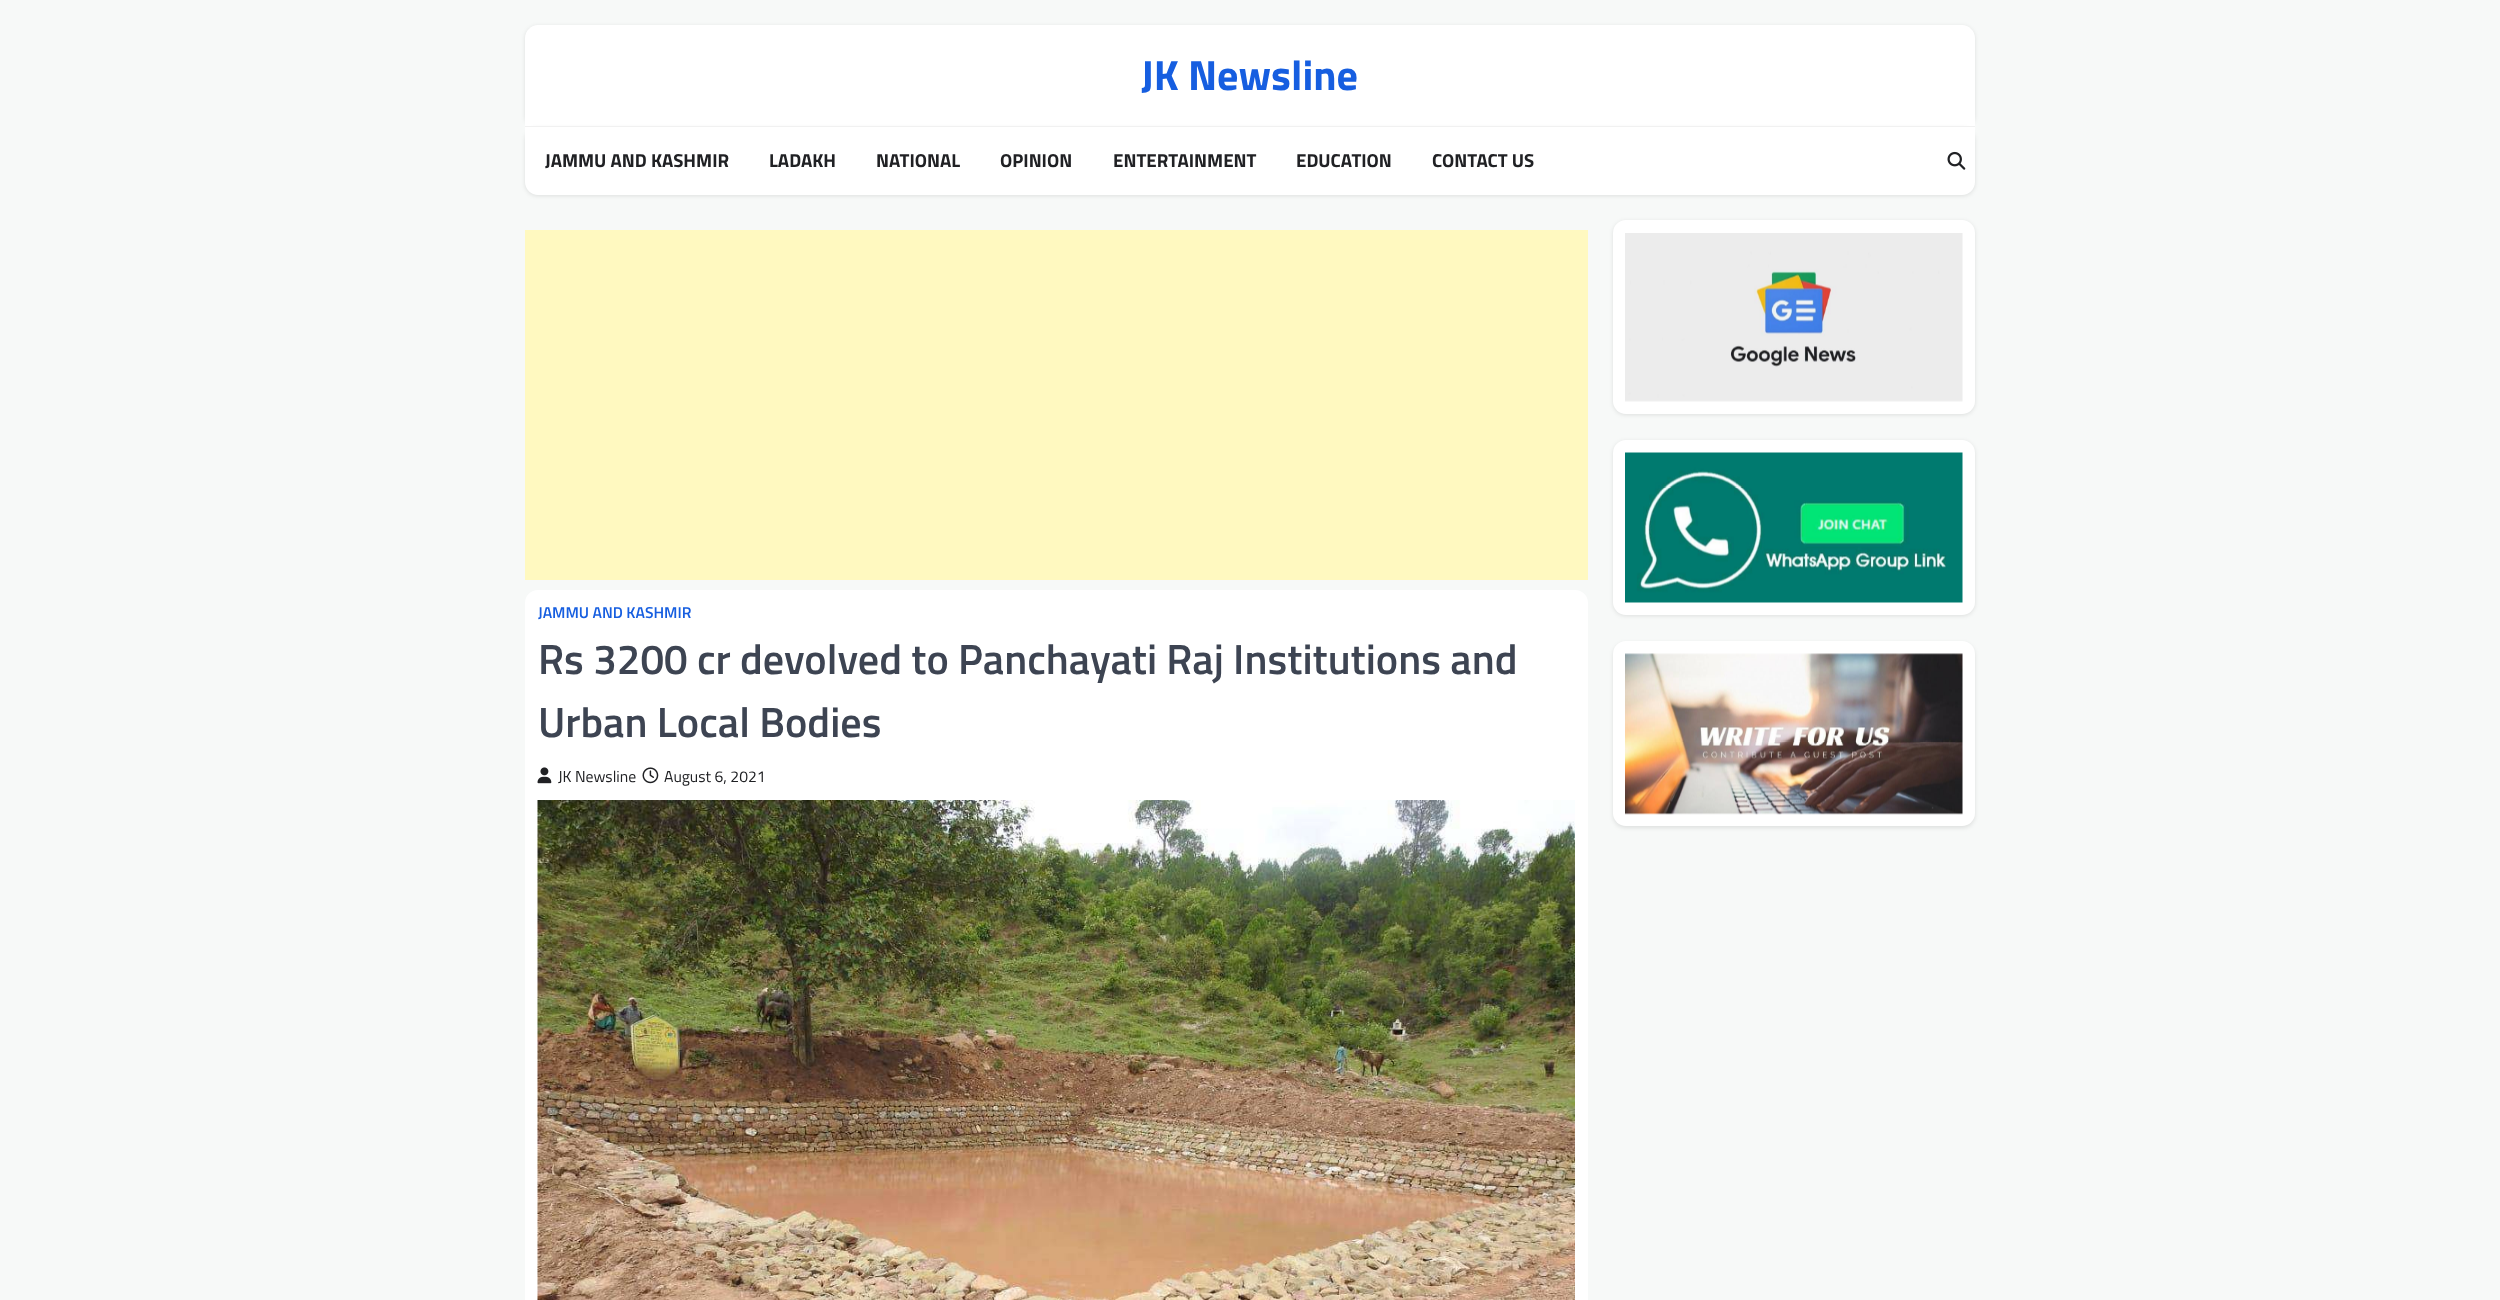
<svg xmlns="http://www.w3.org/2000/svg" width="2500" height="1300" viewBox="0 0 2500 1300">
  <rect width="100%" height="100%" fill="rgb(247,249,248)"/>
  <rect x="525" y="26" width="1450" height="102" rx="13" fill="rgba(0,0,0,0.1)" filter="blur(2px)"/>
  <path d="M538 25H1962C1969 25 1975 31 1975 38V126H525V38C525 31 531 25 538 25Z" fill="rgb(255,255,255)"/>
  <text x="1141" y="90" font-family="Titillium Web" font-size="42.2" font-weight="bold" fill="rgb(22,94,224)">JK Newsline</text>
  <rect x="525" y="128" width="1450" height="68" rx="13" fill="rgba(0,0,0,0.1)" filter="blur(2px)"/>
  <path d="M525 126H1975V182C1975 189 1969 195 1962 195H538C531 195 525 189 525 182Z" fill="rgb(255,255,255)"/>
  <rect x="525" y="126" width="1450" height="1" fill="rgb(241,241,241)"/>
  <g font-family="Titillium Web" font-size="18.75" font-weight="bold" fill="rgb(32,33,36)">
    <text x="545" y="167">JAMMU AND KASHMIR</text>
    <text x="769" y="167">LADAKH</text>
    <text x="876" y="167">NATIONAL</text>
    <text x="1000" y="167">OPINION</text>
    <text x="1113" y="167">ENTERTAINMENT</text>
    <text x="1296" y="167">EDUCATION</text>
    <text x="1432" y="167">CONTACT US</text>
  </g>
  <image x="1947" y="151" width="19" height="19" href="pic1.png"/>
  <rect x="525" y="230" width="1063" height="350" fill="rgb(255,249,192)"/>
  <rect x="525" y="590" width="1063" height="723" rx="13" fill="rgb(255,255,255)"/>
  <text x="538" y="618" font-family="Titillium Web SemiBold" font-size="15.75" font-weight="600" fill="rgb(22,94,224)">JAMMU AND KASHMIR</text>
  <g font-family="Titillium Web SemiBold" font-size="42.2" font-weight="600" fill="rgb(61,68,82)">
    <text>
      <tspan x="538" y="674">Rs 3200 cr devolved to Panchayati Raj Institutions and</tspan>
      <tspan x="538" y="737">Urban Local Bodies</tspan>
    </text>
  </g>
  <image x="537" y="767" width="15" height="17" href="pic2.png"/>
  <text x="558" y="782" font-family="Titillium Web" font-size="15.75" fill="rgb(32,33,36)">JK Newsline</text>
  <image x="642" y="767" width="17" height="17" href="pic3.png"/>
  <text x="664" y="782" font-family="Titillium Web" font-size="15.75" fill="rgb(32,33,36)">August 6, 2021</text>
  <image x="537" y="800" width="1038" height="500" href="pic4.png"/>
  <rect x="1613" y="221" width="362" height="194" rx="13" fill="rgba(0,0,0,0.1)" filter="blur(2px)"/>
  <rect x="1613" y="220" width="362" height="194" rx="13" fill="rgb(255,255,255)"/>
  <image x="1625" y="233" width="338" height="169" href="pic5.png"/>
  <rect x="1613" y="441" width="362" height="175" rx="13" fill="rgba(0,0,0,0.1)" filter="blur(2px)"/>
  <rect x="1613" y="440" width="362" height="175" rx="13" fill="rgb(255,255,255)"/>
  <image x="1625" y="452" width="338" height="151" href="pic6.png"/>
  <rect x="1613" y="643" width="362" height="185" rx="13" fill="rgba(0,0,0,0.1)" filter="blur(2px)"/>
  <rect x="1613" y="641" width="362" height="185" rx="13" fill="rgb(255,255,255)"/>
  <image x="1625" y="653" width="338" height="162" href="pic7.png"/>
</svg>
